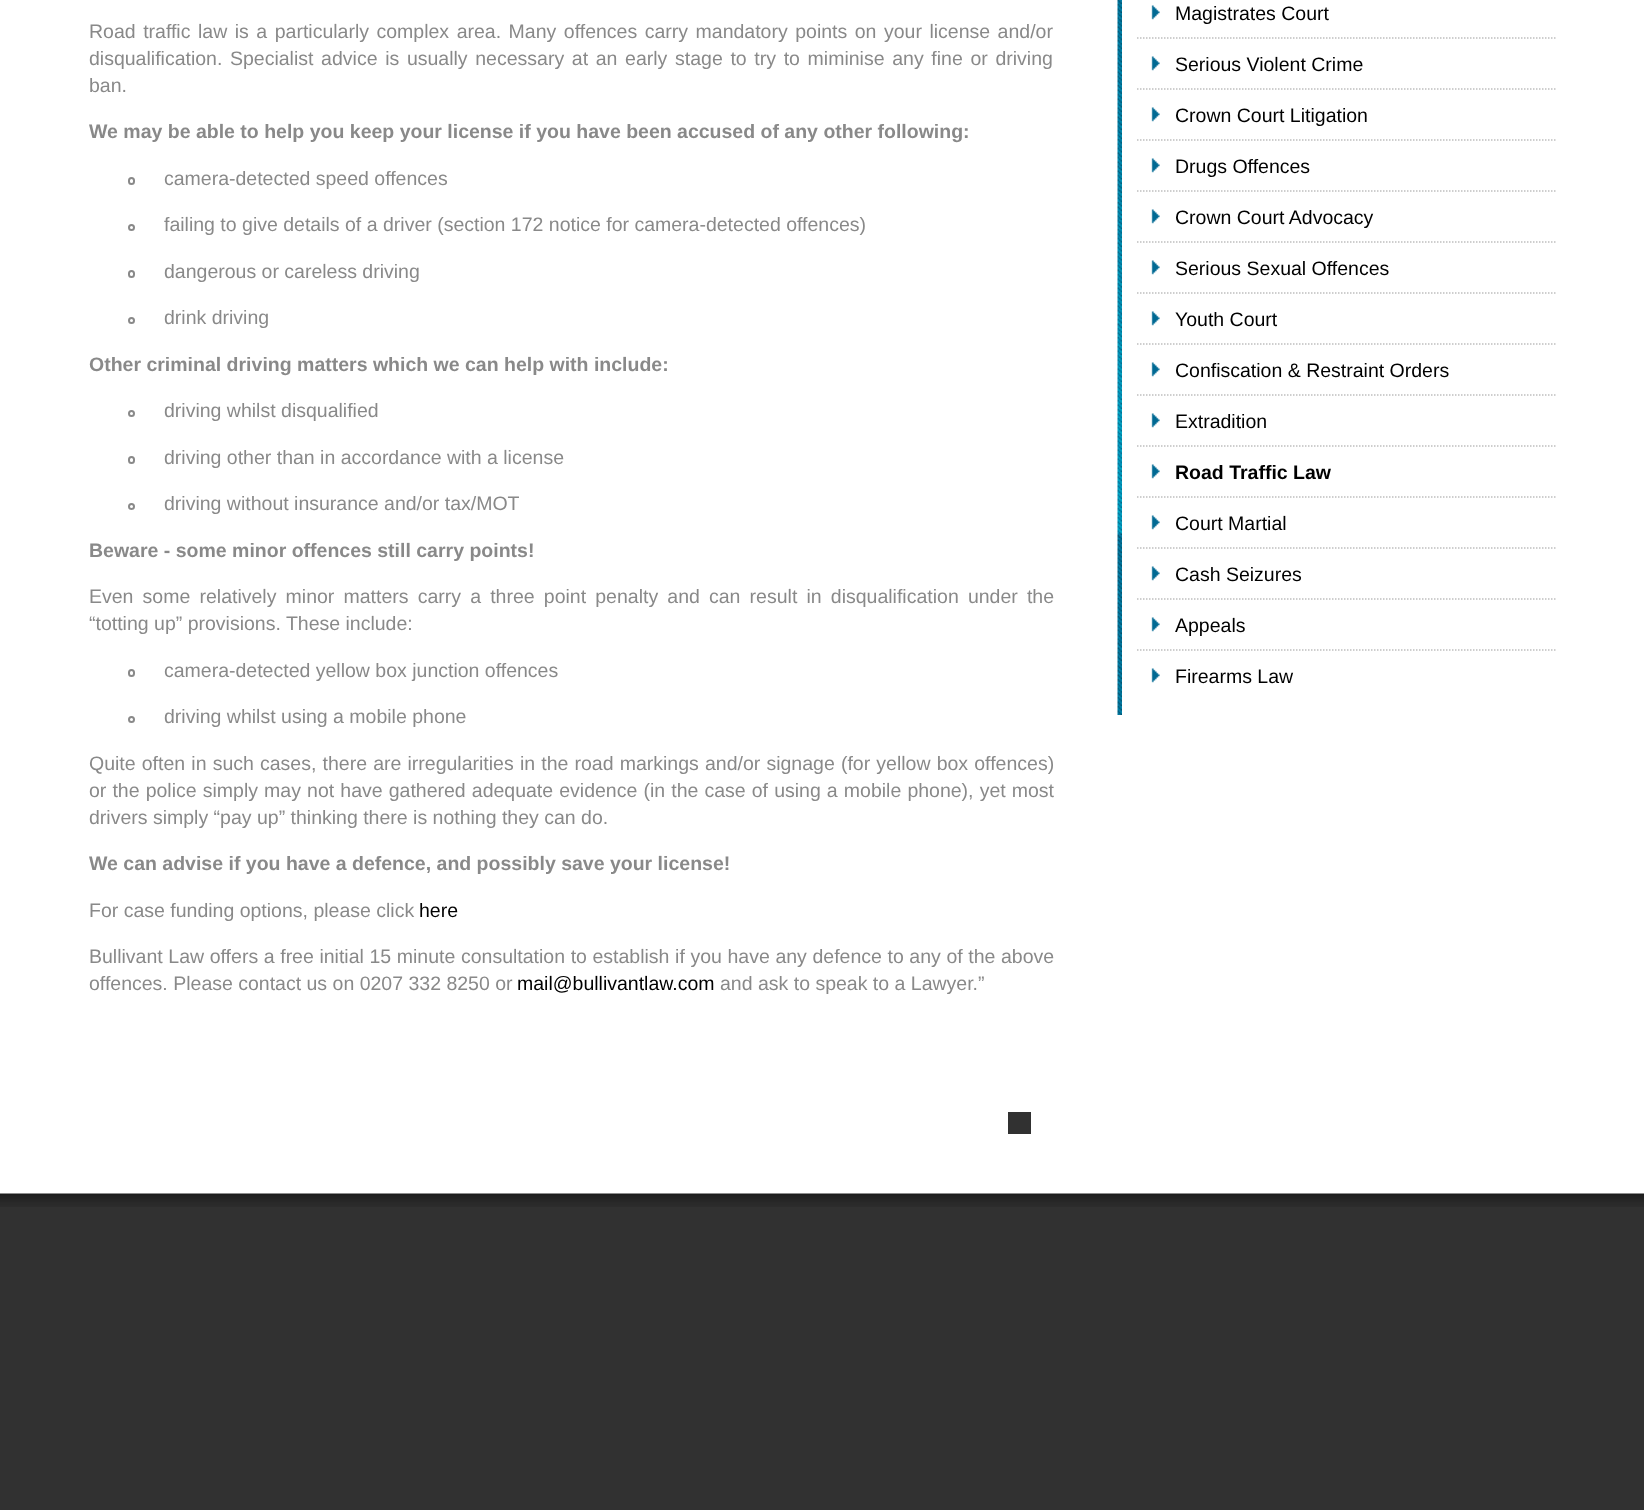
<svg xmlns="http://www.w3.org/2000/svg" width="1644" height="1510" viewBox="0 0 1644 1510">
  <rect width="100%" height="100%" fill="rgb(255,255,255)"/>
  <g font-family="Liberation Sans" font-size="19.5" fill="rgb(137,137,137)">
    <text>
      <tspan x="89" y="38" word-spacing="2.1">Road traffic law is a particularly complex area. Many offences carry mandatory points on your license and/or</tspan>
      <tspan x="89" y="65" word-spacing="2.25">disqualification. Specialist advice is usually necessary at an early stage to try to miminise any fine or driving</tspan>
      <tspan x="89" y="92">ban.</tspan>
    </text>
  </g>
  <text x="89" y="138" font-family="Liberation Sans" font-size="19.5" font-weight="bold" fill="rgb(137,137,137)">We may be able to help you keep your license if you have been accused of any other following:</text>
  <rect x="129" y="178" width="5" height="6" rx="2.5" fill="none" stroke="rgb(137,137,137)" stroke-width="2"/>
  <text x="164" y="185" font-family="Liberation Sans" font-size="19.5" fill="rgb(137,137,137)">camera-detected speed offences</text>
  <circle cx="131.5" cy="227.5" r="2.5" fill="none" stroke="rgb(137,137,137)" stroke-width="2"/>
  <text x="164" y="231" font-family="Liberation Sans" font-size="19.5" fill="rgb(137,137,137)">failing to give details of a driver (section 172 notice for camera-detected offences)</text>
  <rect x="129" y="271" width="5" height="6" rx="2.5" fill="none" stroke="rgb(137,137,137)" stroke-width="2"/>
  <text x="164" y="278" font-family="Liberation Sans" font-size="19.5" fill="rgb(137,137,137)">dangerous or careless driving</text>
  <circle cx="131.5" cy="320.5" r="2.5" fill="none" stroke="rgb(137,137,137)" stroke-width="2"/>
  <text x="164" y="324" font-family="Liberation Sans" font-size="19.5" fill="rgb(137,137,137)">drink driving</text>
  <text x="89" y="371" font-family="Liberation Sans" font-size="19.5" font-weight="bold" fill="rgb(137,137,137)">Other criminal driving matters which we can help with include:</text>
  <circle cx="131.5" cy="413.5" r="2.5" fill="none" stroke="rgb(137,137,137)" stroke-width="2"/>
  <text x="164" y="417" font-family="Liberation Sans" font-size="19.5" fill="rgb(137,137,137)">driving whilst disqualified</text>
  <rect x="129" y="457" width="5" height="6" rx="2.5" fill="none" stroke="rgb(137,137,137)" stroke-width="2"/>
  <text x="164" y="464" font-family="Liberation Sans" font-size="19.5" fill="rgb(137,137,137)">driving other than in accordance with a license</text>
  <circle cx="131.5" cy="506.5" r="2.5" fill="none" stroke="rgb(137,137,137)" stroke-width="2"/>
  <text x="164" y="510" font-family="Liberation Sans" font-size="19.5" fill="rgb(137,137,137)">driving without insurance and/or tax/MOT</text>
  <text x="89" y="557" font-family="Liberation Sans" font-size="19.5" font-weight="bold" fill="rgb(137,137,137)">Beware - some minor offences still carry points!</text>
  <g font-family="Liberation Sans" font-size="19.5" fill="rgb(137,137,137)">
    <text>
      <tspan x="89" y="603" word-spacing="3.75">Even some relatively minor matters carry a three point penalty and can result in disqualification under the</tspan>
      <tspan x="89" y="630">“totting up” provisions. These include:</tspan>
    </text>
  </g>
  <rect x="129" y="670" width="5" height="6" rx="2.5" fill="none" stroke="rgb(137,137,137)" stroke-width="2"/>
  <text x="164" y="677" font-family="Liberation Sans" font-size="19.5" fill="rgb(137,137,137)">camera-detected yellow box junction offences</text>
  <circle cx="131.5" cy="719.5" r="2.5" fill="none" stroke="rgb(137,137,137)" stroke-width="2"/>
  <g font-family="Liberation Sans" font-size="19.5" fill="rgb(137,137,137)">
    <text x="164" y="723">driving whilst using a mobile phone</text>
    <text>
      <tspan x="89" y="770" word-spacing="0.75">Quite often in such cases, there are irregularities in the road markings and/or signage (for yellow box offences)</tspan>
      <tspan x="89" y="797" word-spacing="0.7">or the police simply may not have gathered adequate evidence (in the case of using a mobile phone), yet most</tspan>
      <tspan x="89" y="824">drivers simply “pay up” thinking there is nothing they can do.</tspan>
    </text>
  </g>
  <text x="89" y="870" font-family="Liberation Sans" font-size="19.5" font-weight="bold" fill="rgb(137,137,137)">We can advise if you have a defence, and possibly save your license!</text>
  <text x="89" y="917" font-family="Liberation Sans" font-size="19.5" fill="rgb(137,137,137)">For case funding options, please click</text>
  <text x="419" y="917" font-family="Liberation Sans" font-size="19.5" fill="rgb(0,0,0)">here</text>
  <g font-family="Liberation Sans" font-size="19.5" fill="rgb(137,137,137)">
    <text>
      <tspan x="89" y="963" word-spacing="0.2">Bullivant Law offers a free initial 15 minute consultation to establish if you have any defence to any of the above</tspan>
      <tspan x="89" y="990">offences. Please contact us on 0207 332 8250 or</tspan>
    </text>
  </g>
  <text x="517" y="990" font-family="Liberation Sans" font-size="19.5" fill="rgb(0,0,0)">mail@bullivantlaw.com</text>
  <text x="720" y="990" font-family="Liberation Sans" font-size="19.5" fill="rgb(137,137,137)">and ask to speak to a Lawyer.”</text>
  <rect x="1008" y="1112" width="23" height="22" fill="rgb(49,49,49)"/>
  <image x="1117" y="0" width="5" height="715" href="pic1.png"/>
  <image x="1151" y="5" width="9" height="15" href="pic2.png"/>
  <text x="1175" y="20" font-family="Liberation Sans" font-size="19.5" fill="rgb(0,0,0)">Magistrates Court</text>
  <path d="M1137 38H1555.5" fill="none" stroke="rgb(191,191,191)" stroke-width="1.5" stroke-dasharray="1.5 1.5"/>
  <image x="1151" y="56" width="9" height="15" href="pic2.png"/>
  <text x="1175" y="71" font-family="Liberation Sans" font-size="19.5" fill="rgb(0,0,0)">Serious Violent Crime</text>
  <path d="M1137 89H1555.5" fill="none" stroke="rgb(191,191,191)" stroke-width="1.5" stroke-dasharray="1.5 1.5"/>
  <image x="1151" y="107" width="9" height="15" href="pic2.png"/>
  <text x="1175" y="122" font-family="Liberation Sans" font-size="19.5" fill="rgb(0,0,0)">Crown Court Litigation</text>
  <path d="M1137 140H1555.5" fill="none" stroke="rgb(191,191,191)" stroke-width="1.5" stroke-dasharray="1.5 1.5"/>
  <image x="1151" y="158" width="9" height="15" href="pic2.png"/>
  <text x="1175" y="173" font-family="Liberation Sans" font-size="19.5" fill="rgb(0,0,0)">Drugs Offences</text>
  <path d="M1137 191H1555.5" fill="none" stroke="rgb(191,191,191)" stroke-width="1.5" stroke-dasharray="1.5 1.5"/>
  <image x="1151" y="209" width="9" height="15" href="pic2.png"/>
  <text x="1175" y="224" font-family="Liberation Sans" font-size="19.5" fill="rgb(0,0,0)">Crown Court Advocacy</text>
  <path d="M1137 242H1555.5" fill="none" stroke="rgb(191,191,191)" stroke-width="1.5" stroke-dasharray="1.5 1.5"/>
  <image x="1151" y="260" width="9" height="15" href="pic2.png"/>
  <text x="1175" y="275" font-family="Liberation Sans" font-size="19.5" fill="rgb(0,0,0)">Serious Sexual Offences</text>
  <path d="M1137 293H1555.5" fill="none" stroke="rgb(191,191,191)" stroke-width="1.5" stroke-dasharray="1.5 1.5"/>
  <image x="1151" y="311" width="9" height="15" href="pic2.png"/>
  <text x="1175" y="326" font-family="Liberation Sans" font-size="19.5" fill="rgb(0,0,0)">Youth Court</text>
  <path d="M1137 344H1555.5" fill="none" stroke="rgb(191,191,191)" stroke-width="1.5" stroke-dasharray="1.5 1.5"/>
  <image x="1151" y="362" width="9" height="15" href="pic2.png"/>
  <text x="1175" y="377" font-family="Liberation Sans" font-size="19.5" fill="rgb(0,0,0)">Confiscation &amp; Restraint Orders</text>
  <path d="M1137 395H1555.5" fill="none" stroke="rgb(191,191,191)" stroke-width="1.5" stroke-dasharray="1.5 1.5"/>
  <image x="1151" y="413" width="9" height="15" href="pic2.png"/>
  <text x="1175" y="428" font-family="Liberation Sans" font-size="19.5" fill="rgb(0,0,0)">Extradition</text>
  <path d="M1137 446H1555.5" fill="none" stroke="rgb(191,191,191)" stroke-width="1.5" stroke-dasharray="1.5 1.5"/>
  <image x="1151" y="464" width="9" height="15" href="pic2.png"/>
  <text x="1175" y="479" font-family="Liberation Sans" font-size="19.5" font-weight="bold" fill="rgb(0,0,0)">Road Traffic Law</text>
  <path d="M1137 497H1555.5" fill="none" stroke="rgb(191,191,191)" stroke-width="1.5" stroke-dasharray="1.5 1.5"/>
  <image x="1151" y="515" width="9" height="15" href="pic2.png"/>
  <text x="1175" y="530" font-family="Liberation Sans" font-size="19.5" fill="rgb(0,0,0)">Court Martial</text>
  <path d="M1137 548H1555.5" fill="none" stroke="rgb(191,191,191)" stroke-width="1.5" stroke-dasharray="1.5 1.5"/>
  <image x="1151" y="566" width="9" height="15" href="pic2.png"/>
  <text x="1175" y="581" font-family="Liberation Sans" font-size="19.5" fill="rgb(0,0,0)">Cash Seizures</text>
  <path d="M1137 599H1555.5" fill="none" stroke="rgb(191,191,191)" stroke-width="1.5" stroke-dasharray="1.5 1.5"/>
  <image x="1151" y="617" width="9" height="15" href="pic2.png"/>
  <text x="1175" y="632" font-family="Liberation Sans" font-size="19.5" fill="rgb(0,0,0)">Appeals</text>
  <path d="M1137 650H1555.5" fill="none" stroke="rgb(191,191,191)" stroke-width="1.5" stroke-dasharray="1.5 1.5"/>
  <image x="1151" y="668" width="9" height="15" href="pic2.png"/>
  <text x="1175" y="683" font-family="Liberation Sans" font-size="19.5" fill="rgb(0,0,0)">Firearms Law</text>
  <rect x="0" y="1207" width="1644" height="303" fill="rgb(49,49,49)"/>
  <image x="0" y="1193" width="1644" height="14" href="pic3.png"/>
</svg>
